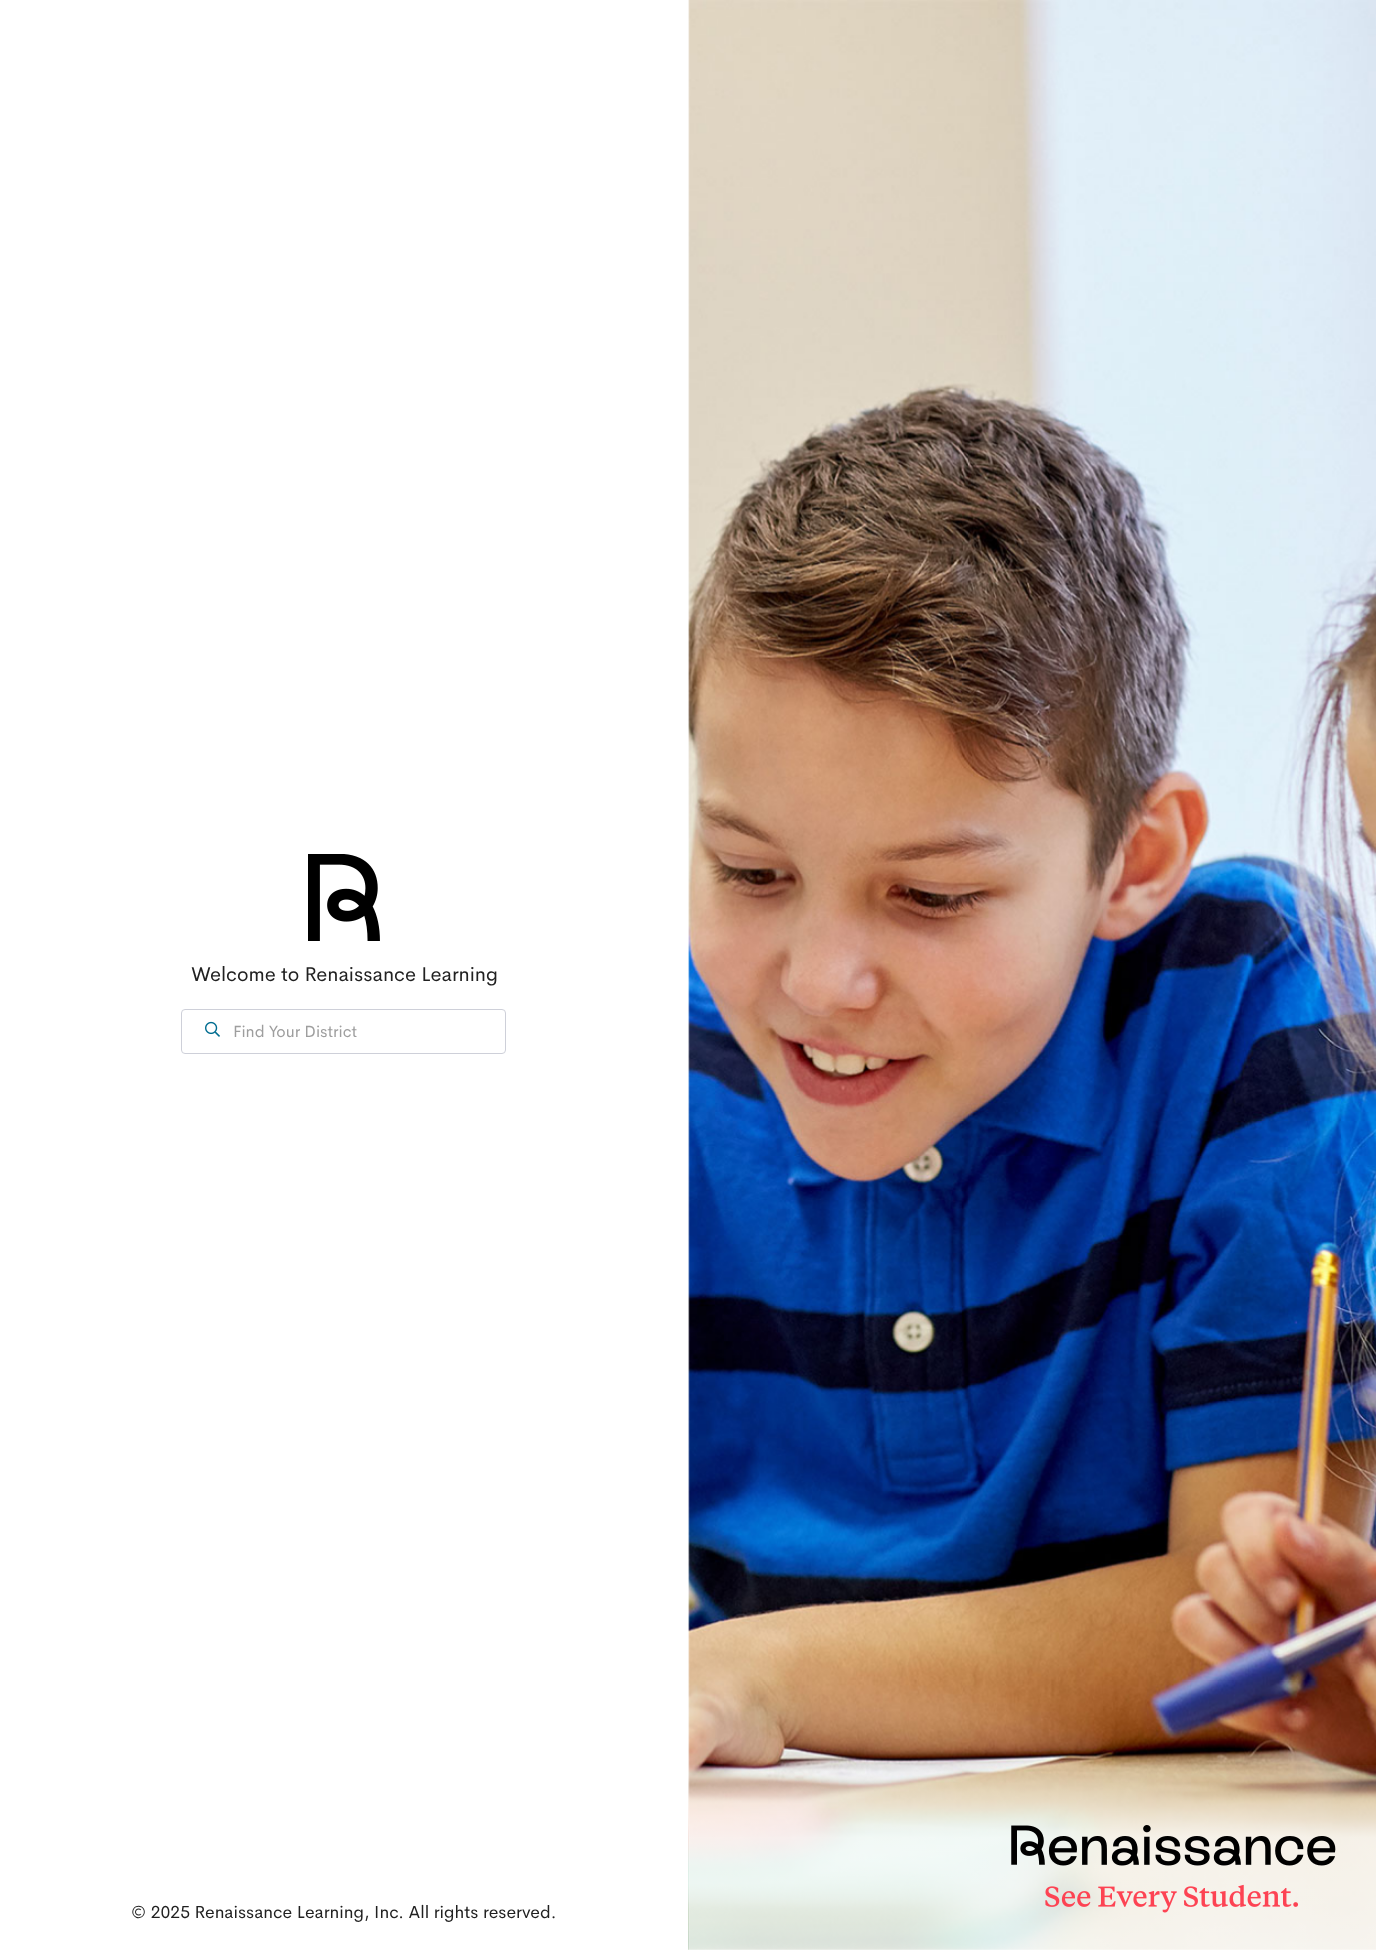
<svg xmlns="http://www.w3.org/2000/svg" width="1376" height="1950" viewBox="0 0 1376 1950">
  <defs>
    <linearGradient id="g1" gradientUnits="userSpaceOnUse" x1="1033" y1="1763" x2="1033" y2="1950"><stop offset="0" stop-color="rgb(255,255,255)" stop-opacity="0"/><stop offset="0.4" stop-color="rgb(255,255,255)" stop-opacity="0.8"/></linearGradient>
  </defs>
  <rect width="100%" height="100%" fill="rgb(255,255,255)"/>
  <image x="308" y="854" width="72" height="87" href="pic1.png"/>
  <text x="191" y="981" font-family="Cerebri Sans" font-size="20" fill="rgb(33,33,33)">Welcome to Renaissance Learning</text>
  <rect x="181.5" y="1009.5" width="324" height="44" rx="3.5" fill="none" stroke="rgb(206,208,217)"/>
  <image x="205" y="1021" width="15" height="16" href="pic2.png"/>
  <text x="233" y="1037" font-family="Cerebri Sans" font-size="16.25" fill="rgb(158,158,158)">Find Your District</text>
  <text x="131" y="1918" font-family="Cerebri Sans" font-size="17.5" fill="rgb(33,33,33)">© 2025 Renaissance Learning, Inc. All rights reserved.</text>
  <image x="688" y="0" width="688" height="1950" href="pic3.png"/>
  <rect x="689" y="1765" width="687" height="185" fill="url(#g1)"/>
  <image x="1011" y="1825" width="325" height="88" href="pic4.png"/>
</svg>
